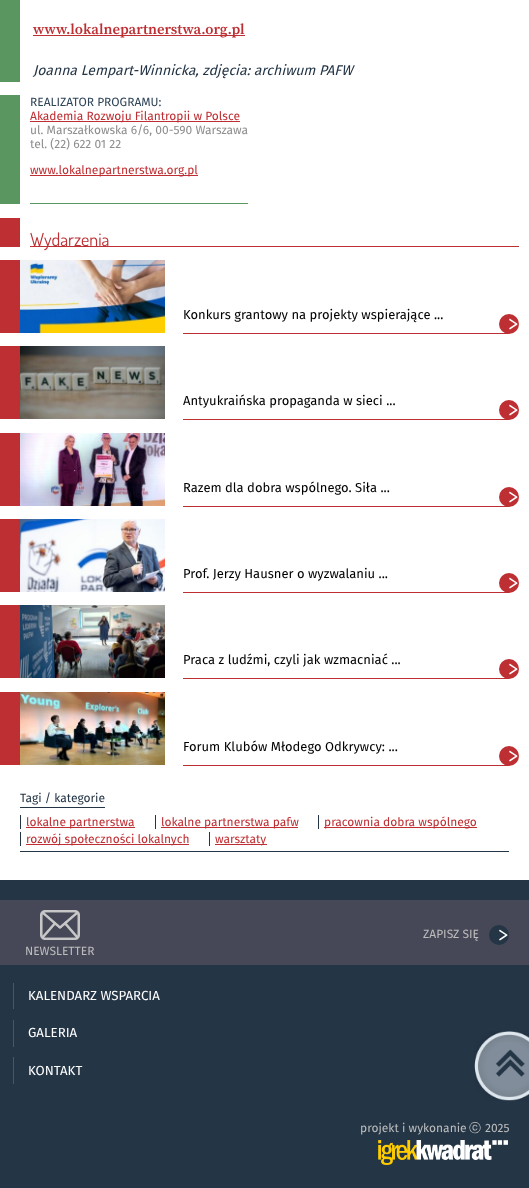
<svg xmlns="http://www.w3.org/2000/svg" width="529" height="1188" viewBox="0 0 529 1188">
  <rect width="100%" height="100%" fill="rgb(255,255,255)"/>
  <rect x="33" y="35" width="212" height="1" fill="rgb(190,47,51)"/>
  <text x="33" y="34" font-family="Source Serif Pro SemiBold" font-size="14.7" font-weight="600" fill="rgb(190,47,51)">www.lokalnepartnerstwa.org.pl</text>
  <rect x="0" y="0" width="20" height="82" fill="rgb(90,150,95)"/>
  <text x="33" y="75" font-family="Fira Sans" font-size="14" font-style="italic" fill="rgb(36,53,70)">Joanna Lempart-Winnicka, zdjęcia: archiwum PAFW</text>
  <rect x="0" y="95" width="20" height="109" fill="rgb(90,150,95)"/>
  <rect x="30" y="203" width="218" height="1" fill="rgb(90,150,95)"/>
  <text x="30" y="106" font-family="Fira Sans" font-size="12" fill="rgb(48,69,88)">REALIZATOR PROGRAMU:</text>
  <rect x="30" y="121" width="210" height="1" fill="rgb(190,47,51)"/>
  <text x="30" y="120" font-family="Fira Sans" font-size="12" fill="rgb(190,47,51)">Akademia Rozwoju Filantropii w Polsce</text>
  <g font-family="Fira Sans" font-size="12" fill="rgb(142,142,142)">
    <text>
      <tspan x="30" y="134">ul. Marszałkowska 6/6, 00-590 Warszawa</tspan>
      <tspan x="30" y="148">tel. (22) 622 01 22</tspan>
    </text>
  </g>
  <rect x="30" y="175" width="168" height="1" fill="rgb(190,47,51)"/>
  <text x="30" y="174" font-family="Fira Sans" font-size="12" fill="rgb(190,47,51)">www.lokalnepartnerstwa.org.pl</text>
  <rect x="0" y="218" width="20" height="29" fill="rgb(190,47,51)"/>
  <rect x="30" y="246" width="489" height="1" fill="rgb(190,47,51)"/>
  <text x="30" y="246" font-family="Dosis" font-size="18" fill="rgb(190,47,51)">Wydarzenia</text>
  <rect x="0" y="260" width="20" height="73" fill="rgb(190,47,51)"/>
  <image x="20" y="260" width="145" height="73" href="pic1.png"/>
  <text x="183" y="319" font-family="Fira Sans" font-size="13" fill="rgb(0,0,0)">Konkurs grantowy na projekty wspierające ...</text>
  <rect x="183" y="333" width="326" height="1" fill="rgb(190,47,51)"/>
  <circle cx="509" cy="324" r="10" fill="rgb(190,47,51)"/>
  <text x="508" y="331" font-family="Dosis" font-size="25" letter-spacing="-5" fill="rgb(255,255,255)">&gt;</text>
  <rect x="0" y="346" width="20" height="73" fill="rgb(190,47,51)"/>
  <image x="20" y="346" width="145" height="73" href="pic2.png"/>
  <text x="183" y="405" font-family="Fira Sans" font-size="13" fill="rgb(0,0,0)">Antyukraińska propaganda w sieci ...</text>
  <rect x="183" y="419" width="326" height="1" fill="rgb(190,47,51)"/>
  <circle cx="509" cy="410" r="10" fill="rgb(190,47,51)"/>
  <text x="508" y="417" font-family="Dosis" font-size="25" letter-spacing="-5" fill="rgb(255,255,255)">&gt;</text>
  <rect x="0" y="433" width="20" height="73" fill="rgb(190,47,51)"/>
  <image x="20" y="433" width="145" height="73" href="pic3.png"/>
  <text x="183" y="492" font-family="Fira Sans" font-size="13" fill="rgb(0,0,0)">Razem dla dobra wspólnego. Siła ...</text>
  <rect x="183" y="506" width="326" height="1" fill="rgb(190,47,51)"/>
  <circle cx="509" cy="497" r="10" fill="rgb(190,47,51)"/>
  <text x="508" y="504" font-family="Dosis" font-size="25" letter-spacing="-5" fill="rgb(255,255,255)">&gt;</text>
  <rect x="0" y="519" width="20" height="73" fill="rgb(190,47,51)"/>
  <image x="20" y="519" width="145" height="73" href="pic4.png"/>
  <text x="183" y="578" font-family="Fira Sans" font-size="13" fill="rgb(0,0,0)">Prof. Jerzy Hausner o wyzwalaniu ...</text>
  <rect x="183" y="592" width="326" height="1" fill="rgb(190,47,51)"/>
  <circle cx="509" cy="583" r="10" fill="rgb(190,47,51)"/>
  <text x="508" y="590" font-family="Dosis" font-size="25" letter-spacing="-5" fill="rgb(255,255,255)">&gt;</text>
  <rect x="0" y="605" width="20" height="73" fill="rgb(190,47,51)"/>
  <image x="20" y="605" width="145" height="73" href="pic5.png"/>
  <text x="183" y="664" font-family="Fira Sans" font-size="13" fill="rgb(0,0,0)">Praca z ludźmi, czyli jak wzmacniać ...</text>
  <rect x="183" y="678" width="326" height="1" fill="rgb(190,47,51)"/>
  <circle cx="509" cy="669" r="10" fill="rgb(190,47,51)"/>
  <text x="508" y="676" font-family="Dosis" font-size="25" letter-spacing="-5" fill="rgb(255,255,255)">&gt;</text>
  <rect x="0" y="692" width="20" height="73" fill="rgb(190,47,51)"/>
  <image x="20" y="692" width="145" height="73" href="pic6.png"/>
  <text x="183" y="751" font-family="Fira Sans" font-size="13" fill="rgb(0,0,0)">Forum Klubów Młodego Odkrywcy: ...</text>
  <rect x="183" y="765" width="326" height="1" fill="rgb(190,47,51)"/>
  <circle cx="509" cy="756" r="10" fill="rgb(190,47,51)"/>
  <text x="508" y="763" font-family="Dosis" font-size="25" letter-spacing="-5" fill="rgb(255,255,255)">&gt;</text>
  <rect x="20" y="851" width="489" height="1" fill="rgb(36,53,70)"/>
  <text x="20" y="802" font-family="Fira Sans" font-size="12" fill="rgb(36,53,70)">Tagi / kategorie</text>
  <rect x="20" y="807" width="85" height="1" fill="rgb(36,53,70)"/>
  <rect x="20" y="815" width="1" height="14" fill="rgb(36,53,70)"/>
  <rect x="26" y="827" width="109" height="1" fill="rgb(190,47,51)"/>
  <text x="26" y="826" font-family="Fira Sans" font-size="12" fill="rgb(190,47,51)">lokalne partnerstwa</text>
  <rect x="155" y="815" width="1" height="14" fill="rgb(36,53,70)"/>
  <rect x="161" y="827" width="137" height="1" fill="rgb(190,47,51)"/>
  <text x="161" y="826" font-family="Fira Sans" font-size="12" fill="rgb(190,47,51)">lokalne partnerstwa pafw</text>
  <rect x="318" y="815" width="1" height="14" fill="rgb(36,53,70)"/>
  <rect x="324" y="827" width="153" height="1" fill="rgb(190,47,51)"/>
  <text x="324" y="826" font-family="Fira Sans" font-size="12" fill="rgb(190,47,51)">pracownia dobra wspólnego</text>
  <rect x="20" y="832" width="1" height="14" fill="rgb(36,53,70)"/>
  <rect x="26" y="844" width="163" height="1" fill="rgb(190,47,51)"/>
  <text x="26" y="843" font-family="Fira Sans" font-size="12" fill="rgb(190,47,51)">rozwój społeczności lokalnych</text>
  <rect x="209" y="832" width="1" height="14" fill="rgb(36,53,70)"/>
  <rect x="215" y="844" width="52" height="1" fill="rgb(190,47,51)"/>
  <text x="215" y="843" font-family="Fira Sans" font-size="12" fill="rgb(190,47,51)">warsztaty</text>
  <rect x="0" y="880" width="529" height="308" fill="rgb(36,53,70)"/>
  <rect x="0" y="900" width="529" height="65" fill="rgb(70,72,87)"/>
  <text x="423" y="938" font-family="Fira Sans" font-size="12" fill="rgb(188,188,188)">ZAPISZ SIĘ</text>
  <circle cx="499" cy="935" r="10" fill="rgb(36,53,70)"/>
  <text x="498" y="942" font-family="Dosis" font-size="25" letter-spacing="-5" fill="rgb(255,255,255)">&gt;</text>
  <image x="40" y="910" width="40" height="30" href="pic7.png"/>
  <text x="25" y="955" font-family="Fira Sans" font-size="12" fill="rgb(188,188,188)">NEWSLETTER</text>
  <text x="28" y="1000" font-family="Fira Sans" font-size="13.25" fill="rgb(255,255,255)">KALENDARZ WSPARCIA</text>
  <rect x="13" y="983" width="1" height="26" fill="rgb(69,88,104)"/>
  <text x="28" y="1037" font-family="Fira Sans" font-size="13.25" fill="rgb(255,255,255)">GALERIA</text>
  <rect x="13" y="1020" width="1" height="27" fill="rgb(69,88,104)"/>
  <text x="28" y="1075" font-family="Fira Sans" font-size="13.25" fill="rgb(255,255,255)">KONTAKT</text>
  <rect x="13" y="1057" width="1" height="27" fill="rgb(69,88,104)"/>
  <image x="474" y="1031" width="55" height="70" href="pic8.png"/>
  <text x="360" y="1132" font-family="Fira Sans" font-size="12" fill="rgb(188,188,188)">projekt i wykonanie</text>
  <text x="469" y="1132" font-family="WenQuanYi Zen Hei" font-size="12" font-weight="500" fill="rgb(188,188,188)">ⓒ</text>
  <text x="485" y="1132" font-family="Fira Sans" font-size="12" fill="rgb(188,188,188)">2025</text>
  <image x="378" y="1140" width="130" height="25" href="pic9.png"/>
</svg>
